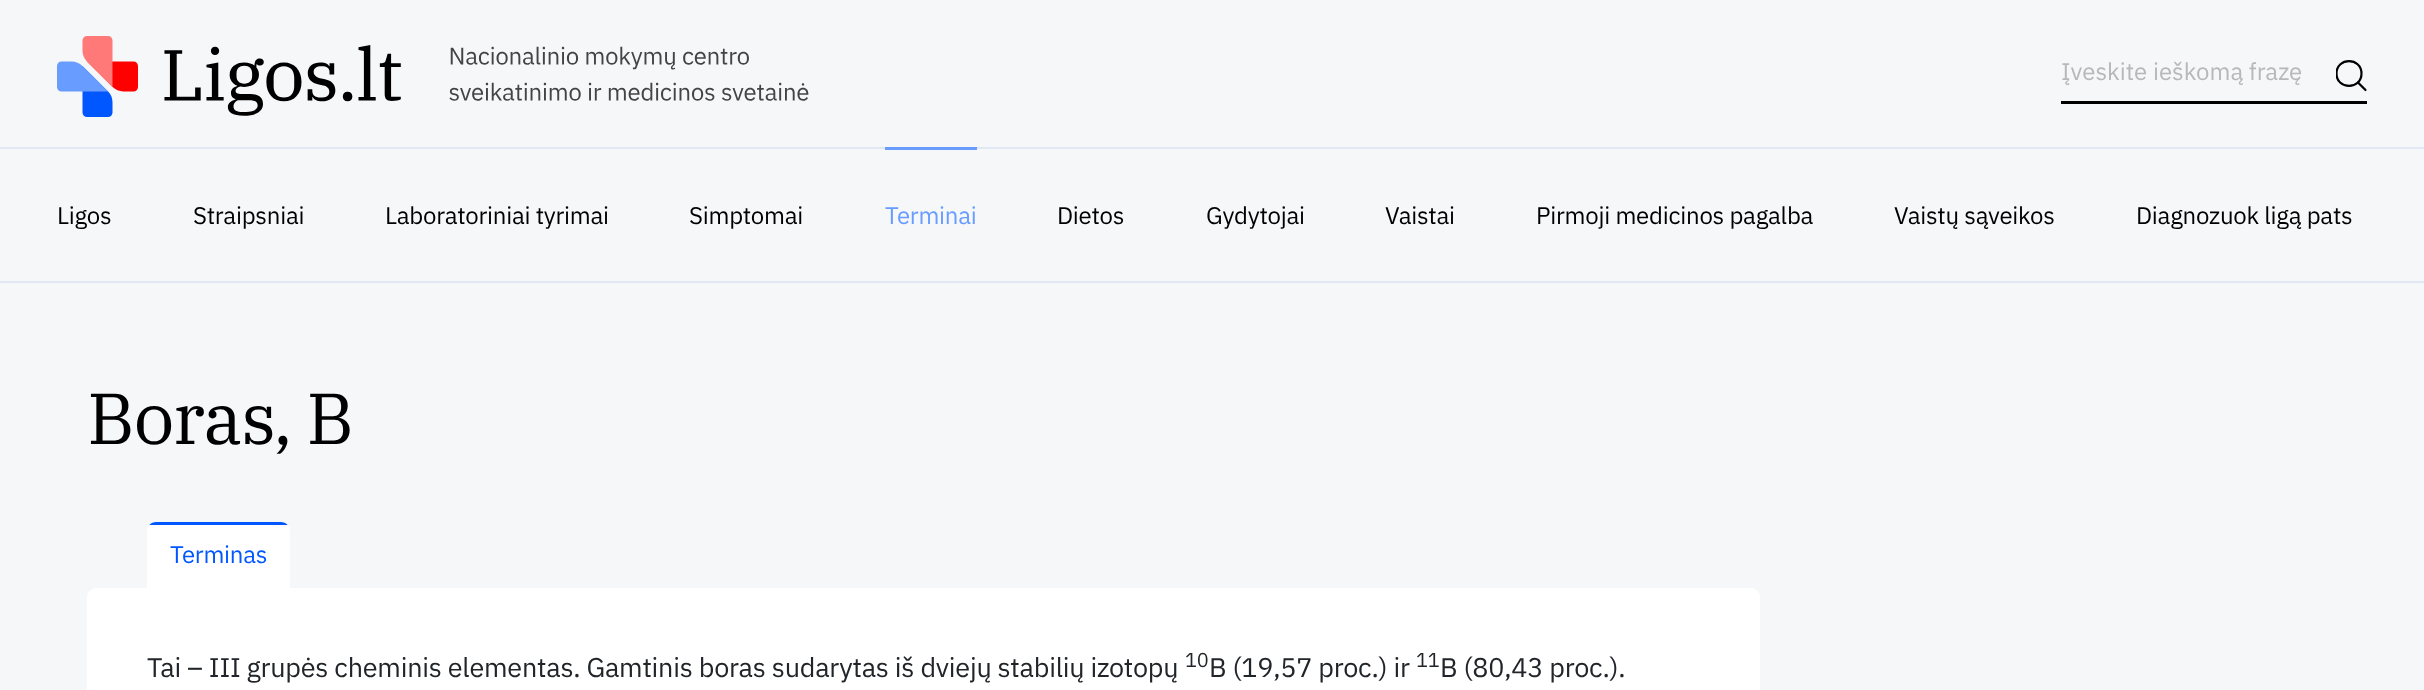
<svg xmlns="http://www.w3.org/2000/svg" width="2424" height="690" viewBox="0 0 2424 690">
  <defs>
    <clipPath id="clip1"><rect x="2336" y="60" width="31" height="32"/></clipPath>
    <clipPath id="clip2"><path d="M156 522H281C286 522 290 526 290 531V588H147V531C147 526 151 522 156 522Z"/></clipPath>
  </defs>
  <rect width="100%" height="100%" fill="rgb(246,247,249)"/>
  <image x="57" y="36" width="752" height="81" href="pic1.png"/>
  <rect x="2061" y="101" width="306" height="3" fill="rgb(0,0,0)"/>
  <text x="2061" y="80" font-family="IBM Plex Sans" font-size="24" fill="rgb(184,184,184)">Įveskite ieškomą frazę</text>
  <g clip-path="url(#clip1)">
    <path d="M2361.5 73.5C2361.5 90 2336.5 90 2336.5 73.5C2336.5 57 2361.5 57 2361.5 73.5Z" fill="none" stroke="rgb(0,0,0)" stroke-width="2.2" stroke-linecap="round" stroke-linejoin="round"/>
  </g>
  <path d="M2365.5 90L2358 82.5" fill="none" stroke="rgb(0,0,0)" stroke-width="2.2" stroke-linecap="round" stroke-linejoin="round"/>
  <rect x="0" y="147" width="2424" height="2" fill="rgb(226,232,243)"/>
  <rect x="0" y="281" width="2424" height="2" fill="rgb(226,232,243)"/>
  <g font-family="IBM Plex Sans" font-size="24" letter-spacing="-0.25" fill="rgb(0,0,0)">
    <text x="57" y="224">Ligos</text>
    <text x="193" y="224">Straipsniai</text>
    <text x="385" y="224">Laboratoriniai tyrimai</text>
    <text x="689" y="224">Simptomai</text>
  </g>
  <rect x="885" y="147" width="92" height="3" fill="rgb(104,156,255)"/>
  <text x="885" y="224" font-family="IBM Plex Sans" font-size="24" letter-spacing="-0.25" fill="rgb(104,156,255)">Terminai</text>
  <g font-family="IBM Plex Sans" font-size="24" letter-spacing="-0.25" fill="rgb(0,0,0)">
    <text x="1057" y="224">Dietos</text>
    <text x="1206" y="224">Gydytojai</text>
    <text x="1385" y="224">Vaistai</text>
    <text x="1536" y="224">Pirmoji medicinos pagalba</text>
    <text x="1894" y="224">Vaistų sąveikos</text>
    <text x="2136" y="224">Diagnozuok ligą pats</text>
  </g>
  <text x="87" y="444" font-family="IBM Plex Serif" font-size="72" letter-spacing="-1.5" fill="rgb(0,0,0)">Boras, B</text>
  <path d="M156 522H281C286 522 290 526 290 531V588H147V531C147 526 151 522 156 522Z" fill="rgb(255,255,255)"/>
  <g clip-path="url(#clip2)">
    <rect x="147" y="522" width="143" height="3" fill="rgb(0,87,255)"/>
  </g>
  <text x="170" y="563" font-family="IBM Plex Sans" font-size="24" letter-spacing="-0.25" fill="rgb(0,87,255)">Terminas</text>
  <rect x="87" y="588" width="1673" height="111" rx="9" fill="rgb(255,255,255)"/>
  <text x="147" y="677" font-family="IBM Plex Sans" font-size="27" letter-spacing="-0.25" fill="rgb(33,37,41)">Tai – III grupės cheminis elementas. Gamtinis boras sudarytas iš dviejų stabilių izotopų</text>
  <text x="1185" y="667" font-family="IBM Plex Sans" font-size="20" letter-spacing="-0.25" fill="rgb(33,37,41)">10</text>
  <text x="1209" y="677" font-family="IBM Plex Sans" font-size="27" letter-spacing="-0.25" fill="rgb(33,37,41)">B (19,57 proc.) ir</text>
  <text x="1416" y="667" font-family="IBM Plex Sans" font-size="20" letter-spacing="-0.25" fill="rgb(33,37,41)">11</text>
  <text x="1440" y="677" font-family="IBM Plex Sans" font-size="27" letter-spacing="-0.25" fill="rgb(33,37,41)">B (80,43 proc.).</text>
</svg>
